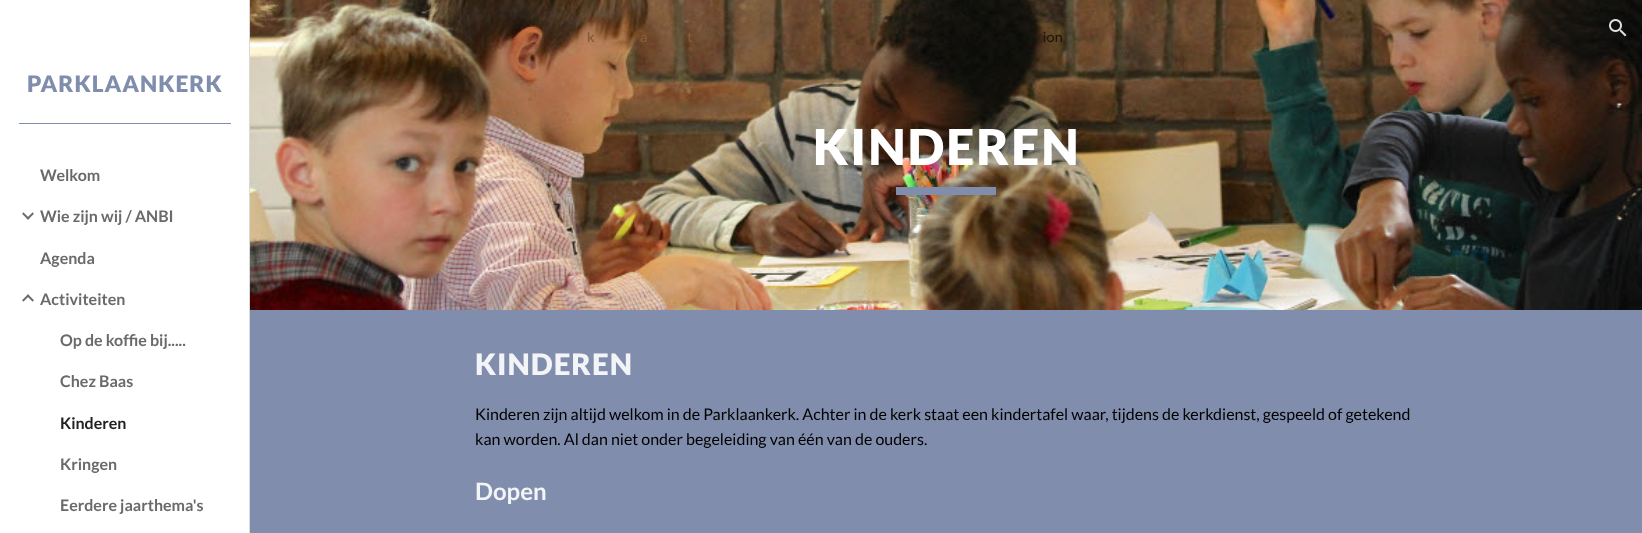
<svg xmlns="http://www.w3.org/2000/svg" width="1642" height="533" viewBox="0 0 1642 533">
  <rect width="100%" height="100%" fill="rgb(255,255,255)"/>
  <image x="250" y="0" width="1392" height="310" href="pic4.png"/>
  <g font-family="Google Sans" font-size="14" font-weight="500" fill="rgb(133,91,58)">
    <text x="587" y="42">k</text>
    <text x="640" y="42">a</text>
    <text x="687" y="42">t</text>
  </g>
  <text x="1043" y="42" font-family="Google Sans" font-size="14" font-weight="500" fill="rgb(31,25,16)">ion</text>
  <image x="1609" y="19" width="18" height="18" href="pic1.png"/>
  <rect x="249" y="0" width="1" height="533" fill="rgb(217,217,217)"/>
  <text x="27" y="92" font-family="Lato" font-size="22.75" font-weight="900" letter-spacing="1" fill="rgb(128,141,172)">PARKLAANKERK</text>
  <rect x="19" y="123" width="212" height="1" fill="rgb(128,141,172)"/>
  <text x="40" y="181" font-family="Lato" font-size="16" font-weight="bold" fill="rgb(106,106,106)">Welkom</text>
  <image x="22" y="212" width="12" height="8" href="pic2.png"/>
  <g font-family="Lato" font-size="16" font-weight="bold" fill="rgb(106,106,106)">
    <text x="40" y="222">Wie zijn wij / ANBI</text>
    <text x="40" y="264">Agenda</text>
  </g>
  <image x="22" y="294" width="12" height="8" href="pic3.png"/>
  <g font-family="Lato" font-size="16" font-weight="bold" fill="rgb(106,106,106)">
    <text x="40" y="305">Activiteiten</text>
    <text x="60" y="346">Op de koffie bij.....</text>
    <text x="60" y="387">Chez Baas</text>
  </g>
  <text x="60" y="429" font-family="Lato" font-size="16" font-weight="bold" fill="rgb(33,33,33)">Kinderen</text>
  <g font-family="Lato" font-size="16" font-weight="bold" fill="rgb(106,106,106)">
    <text x="60" y="470">Kringen</text>
    <text x="60" y="511">Eerdere jaarthema's</text>
  </g>
  <text x="813" y="165" font-family="Lato" font-size="49.5" font-weight="900" letter-spacing="2" fill="rgb(255,255,255)">KINDEREN</text>
  <rect x="896" y="187" width="100" height="8" fill="rgb(128,141,172)"/>
  <rect x="250" y="310" width="1392" height="223" fill="rgb(128,141,172)"/>
  <text x="475" y="375" font-family="Lato" font-size="29.5" font-weight="900" letter-spacing="1" fill="rgb(242,244,247)">KINDEREN</text>
  <g font-family="Lato" font-size="16" fill="rgb(0,0,0)">
    <text>
      <tspan x="475" y="420">Kinderen zijn altijd welkom in de Parklaankerk. Achter in de kerk staat een kindertafel waar, tijdens de kerkdienst, gespeeld of getekend</tspan>
      <tspan x="475" y="445">kan worden. Al dan niet onder begeleiding van één van de ouders.</tspan>
    </text>
  </g>
  <text x="475" y="500" font-family="Lato" font-size="24" font-weight="bold" fill="rgb(242,244,247)">Dopen</text>
</svg>
